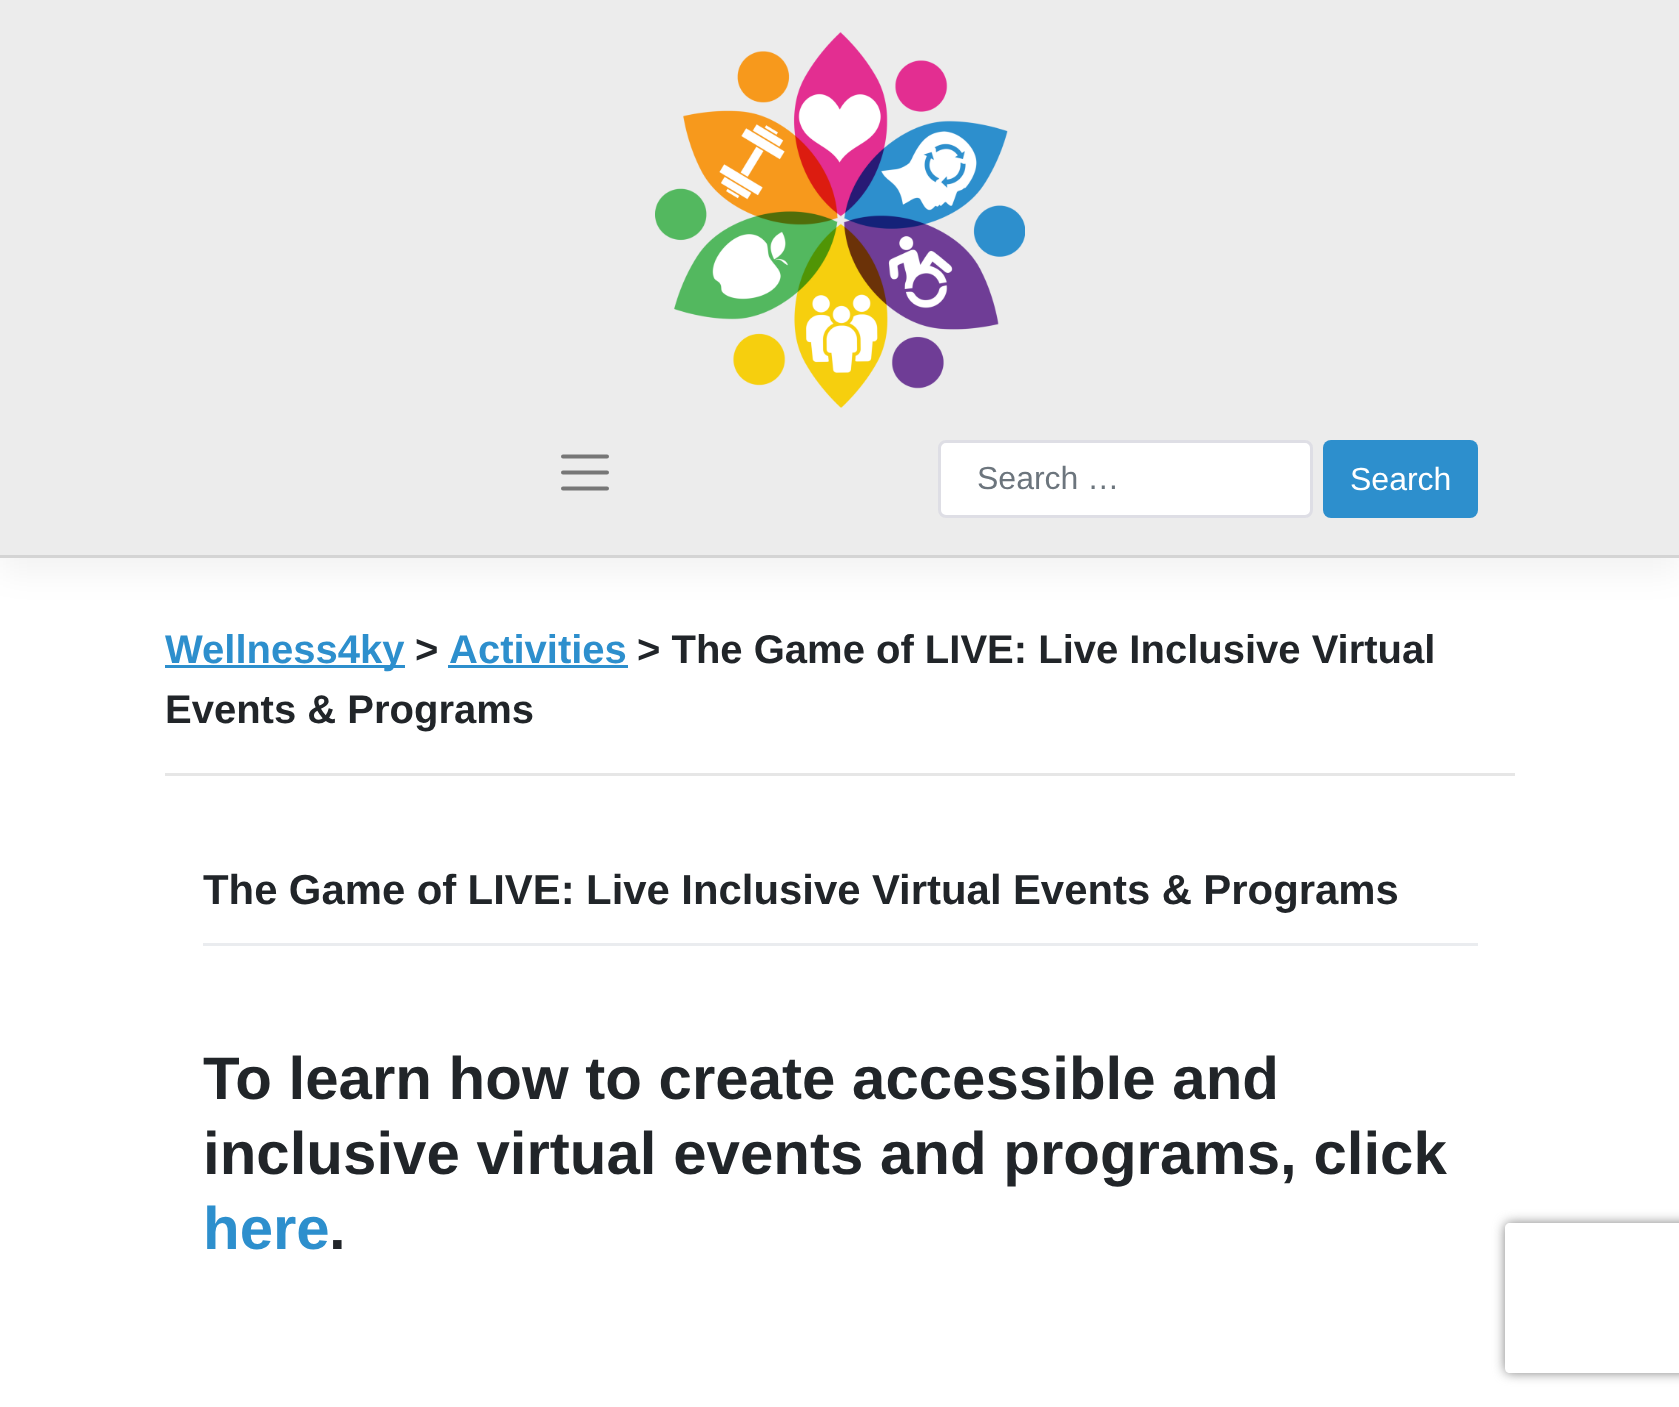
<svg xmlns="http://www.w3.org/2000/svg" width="1679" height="1407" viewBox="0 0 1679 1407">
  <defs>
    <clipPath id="clip1"><path d="M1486 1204H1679V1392H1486ZM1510 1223H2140C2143 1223 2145 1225 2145 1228V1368C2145 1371 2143 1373 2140 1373H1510C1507 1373 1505 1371 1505 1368V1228C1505 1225 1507 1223 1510 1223Z" clip-rule="evenodd"/></clipPath>
  </defs>
  <rect width="100%" height="100%" fill="rgb(255,255,255)"/>
  <rect x="0" y="15" width="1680" height="558" fill="rgba(0,0,0,0.05)" filter="blur(16px)"/>
  <rect x="0" y="0" width="1679" height="555" fill="rgb(236,236,236)"/>
  <rect x="0" y="555" width="1679" height="3" fill="rgb(212,212,212)"/>
  <image x="655" y="32" width="370" height="376" href="pic1.png"/>
  <path d="M563 456.5H607M563 472.5H607M563 488.5H607" fill="none" stroke="rgb(118,118,118)" stroke-width="4" stroke-linecap="round"/>
  <rect x="939.5" y="441.5" width="372" height="75" rx="6.5" fill="rgb(255,255,255)" stroke="rgb(222,222,229)" stroke-width="3"/>
  <text x="977" y="489" font-family="Liberation Sans" font-size="32" fill="rgb(108,117,125)">Search …</text>
  <rect x="1323" y="440" width="155" height="78" rx="8" fill="rgb(45,143,205)"/>
  <text x="1350" y="490" font-family="Liberation Sans" font-size="32" fill="rgb(255,255,255)">Search</text>
  <rect x="165" y="665" width="240" height="3" fill="rgb(45,143,205)"/>
  <text x="165" y="663" font-family="Liberation Sans" font-size="40" font-weight="bold" fill="rgb(45,143,205)">Wellness4ky</text>
  <text x="415" y="663" font-family="Liberation Sans" font-size="40" font-weight="bold" fill="rgb(33,37,41)">&gt;</text>
  <text x="449" y="663" font-family="Liberation Sans" font-size="40" font-weight="bold" fill="rgb(45,143,205)">Activities</text>
  <rect x="448" y="665" width="180" height="3" fill="rgb(45,143,205)"/>
  <g font-family="Liberation Sans" font-size="40" font-weight="bold" fill="rgb(33,37,41)">
    <text x="637" y="663">&gt; The Game of LIVE: Live Inclusive Virtual</text>
    <text x="165" y="723">Events &amp; Programs</text>
  </g>
  <rect x="165" y="773" width="1350" height="3" fill="rgb(230,230,230)"/>
  <rect x="203" y="943" width="1275" height="3" fill="rgb(234,236,239)"/>
  <text x="203" y="904" word-spacing="-0.25" font-family="Liberation Sans" font-size="41.9" font-weight="bold" fill="rgb(33,37,41)">The Game of LIVE: Live Inclusive Virtual Events &amp; Programs</text>
  <g font-family="Liberation Sans" font-size="60" font-weight="bold" fill="rgb(33,37,41)">
    <text>
      <tspan x="203" y="1099">To learn how to create accessible and</tspan>
      <tspan x="203" y="1174">inclusive virtual events and programs, click</tspan>
    </text>
  </g>
  <text x="203" y="1249" font-family="Liberation Sans" font-size="60" font-weight="bold" fill="rgb(45,143,205)">here</text>
  <text x="329" y="1249" font-family="Liberation Sans" font-size="60" font-weight="bold" fill="rgb(33,37,41)">.</text>
  <g clip-path="url(#clip1)">
    <rect x="1505" y="1223" width="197" height="150" rx="5" fill="rgb(128,128,128)" filter="blur(6px)"/>
  </g>
</svg>
